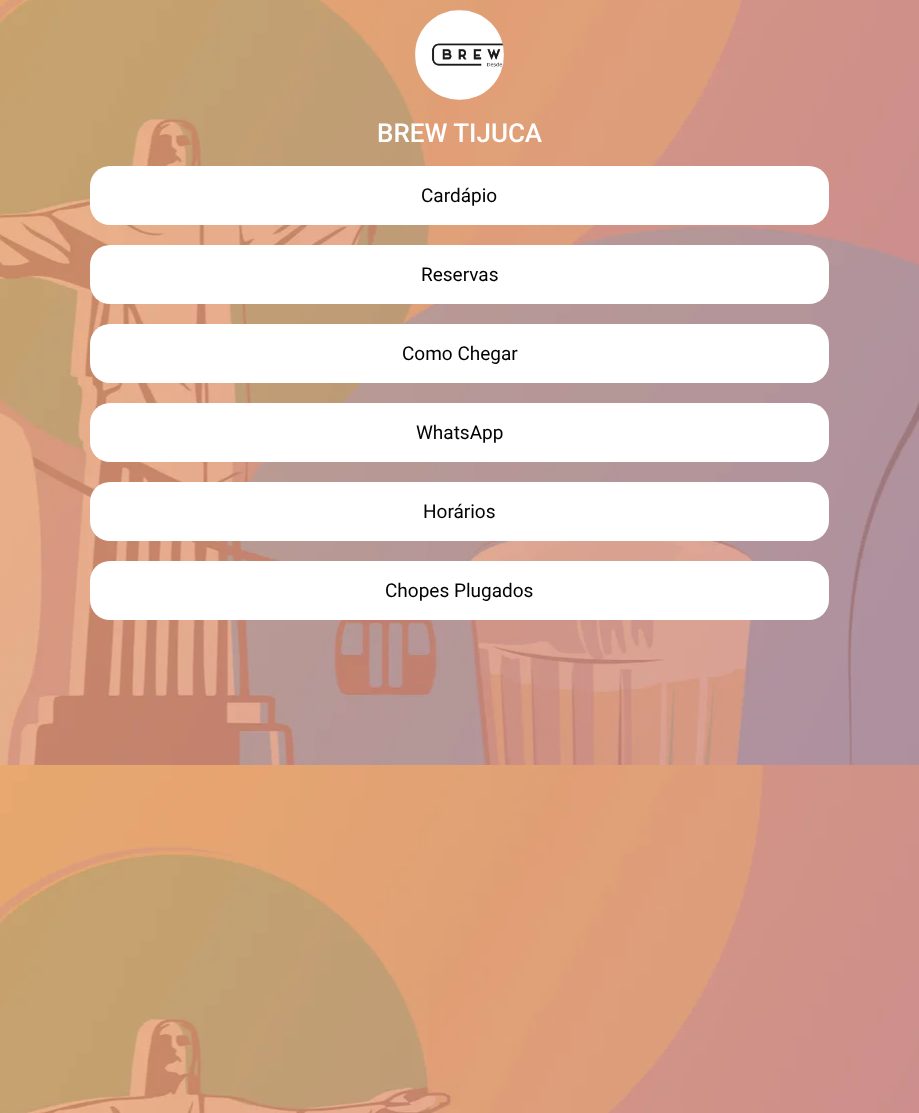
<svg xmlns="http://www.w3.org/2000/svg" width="919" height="1113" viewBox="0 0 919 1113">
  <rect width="100%" height="100%" fill="rgb(255,255,255)"/>
  <image x="0" y="0" width="919" height="1113" href="pic1.png"/>
  <image x="415" y="10" width="89" height="90" href="pic2.png"/>
  <text x="377" y="142" font-family="Roboto" font-size="26" font-weight="500" fill="rgb(255,255,255)">BREW TIJUCA</text>
  <rect x="90" y="166" width="739" height="59" rx="20" fill="rgb(255,255,255)"/>
  <text x="421" y="202" font-family="Roboto" font-size="19" fill="rgb(0,0,0)">Cardápio</text>
  <rect x="90" y="245" width="739" height="59" rx="20" fill="rgb(255,255,255)"/>
  <text x="421" y="281" font-family="Roboto" font-size="19" fill="rgb(0,0,0)">Reservas</text>
  <rect x="90" y="324" width="739" height="59" rx="20" fill="rgb(255,255,255)"/>
  <text x="402" y="360" font-family="Roboto" font-size="19" fill="rgb(0,0,0)">Como Chegar</text>
  <rect x="90" y="403" width="739" height="59" rx="20" fill="rgb(255,255,255)"/>
  <text x="416" y="439" font-family="Roboto" font-size="19" fill="rgb(0,0,0)">WhatsApp</text>
  <rect x="90" y="482" width="739" height="59" rx="20" fill="rgb(255,255,255)"/>
  <text x="423" y="518" font-family="Roboto" font-size="19" fill="rgb(0,0,0)">Horários</text>
  <rect x="90" y="561" width="739" height="59" rx="20" fill="rgb(255,255,255)"/>
  <text x="385" y="597" font-family="Roboto" font-size="19" fill="rgb(0,0,0)">Chopes Plugados</text>
</svg>
